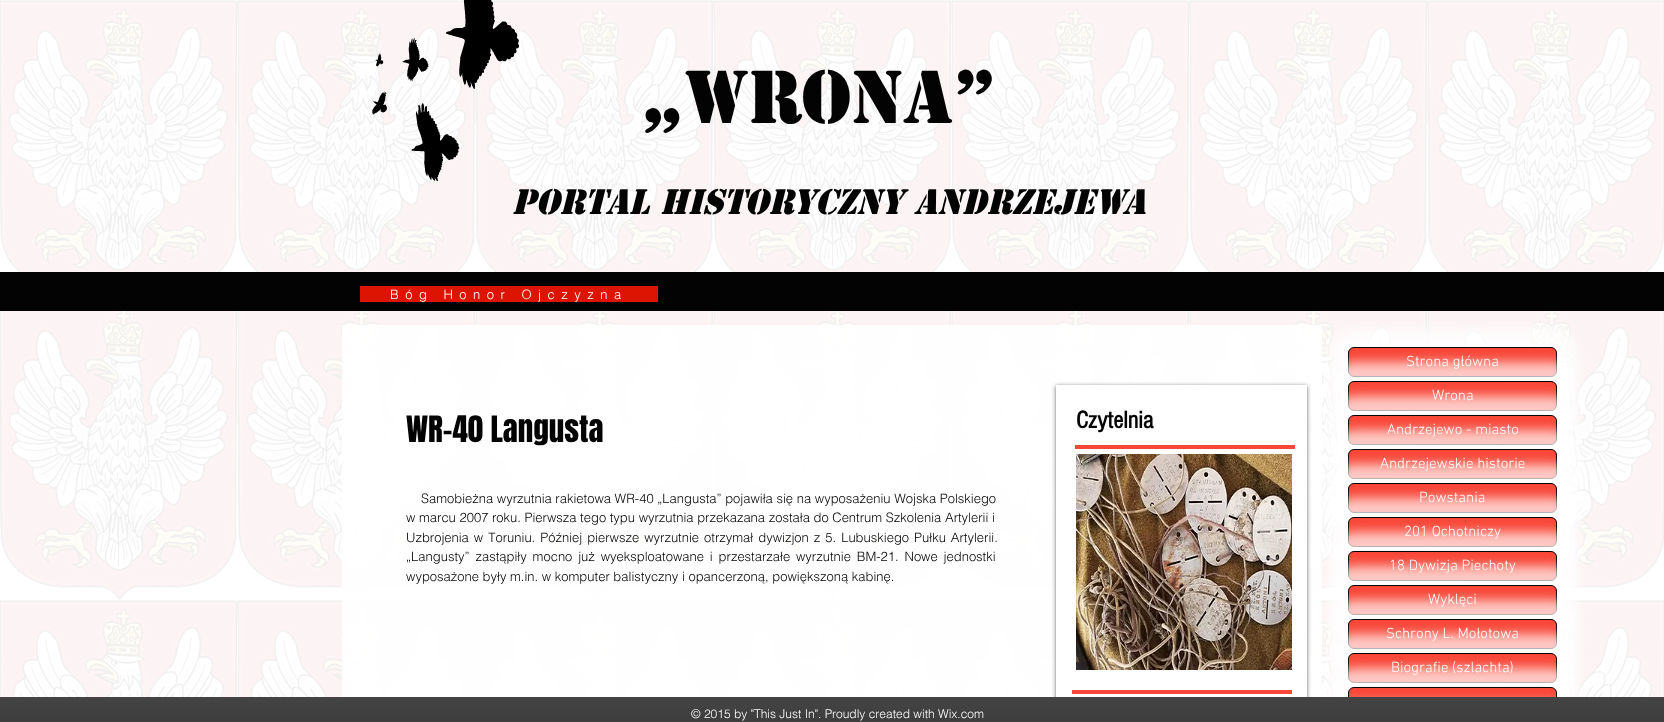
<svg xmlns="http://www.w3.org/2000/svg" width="1664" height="722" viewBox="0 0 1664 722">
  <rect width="100%" height="100%" fill="rgb(255,255,255)"/>
  <image x="0" y="0" width="1664" height="697" href="pic1.png"/>
  <image x="372" y="0" width="147" height="181" href="pic2.png"/>
  <text x="640" y="123" font-family="'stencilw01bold'" font-size="70" font-weight="bold" fill="rgb(3,3,3)">„Wrona”</text>
  <text x="512" y="214" font-family="'stencilw01bold'" font-size="33" font-weight="bold" font-style="italic" fill="rgb(3,3,3)">portal historyczny Andrzejewa</text>
  <rect x="0" y="272" width="1664" height="39" fill="rgb(3,3,3)"/>
  <rect x="360" y="286" width="298" height="16" fill="rgb(222,20,2)"/>
  <text x="390" y="299" font-family="helvetica" font-size="13" font-weight="300" letter-spacing="6.5" fill="rgb(255,255,255)">Bóg Honor Ojczyzna</text>
  <rect x="342" y="325" width="980" height="372" fill="rgba(255,255,255,0.88)"/>
  <text x="406" y="442" font-family="Anton" font-size="31" fill="rgb(3,3,3)">WR-40 Langusta</text>
  <g font-family="helvetica" font-size="13" font-weight="300" fill="rgb(3,3,3)">
    <text x="421" y="503">Samobieżna wyrzutnia rakietowa WR-40 „Langusta” pojawiła się na wyposażeniu Wojska Polskiego</text>
    <text>
      <tspan x="406" y="522">w marcu 2007 roku. Pierwsza tego typu wyrzutnia przekazana została do Centrum Szkolenia Artylerii i</tspan>
      <tspan x="406" y="542" word-spacing="1.4">Uzbrojenia w Toruniu. Później pierwsze wyrzutnie otrzymał dywizjon z 5. Lubuskiego Pułku Artylerii.</tspan>
      <tspan x="406" y="561" word-spacing="2.25">„Langusty” zastąpiły mocno już wyeksploatowane i przestarzałe wyrzutnie BM-21. Nowe jednostki</tspan>
      <tspan x="406" y="581">wyposażone były m.in. w komputer balistyczny i opancerzoną, powiększoną kabinę.</tspan>
    </text>
  </g>
  <rect x="1056" y="386" width="251" height="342" fill="rgba(0,0,0,0.6)" filter="blur(2px)"/>
  <rect x="1056" y="385" width="251" height="312" fill="rgb(255,255,255)"/>
  <text x="1076" y="428" font-family="'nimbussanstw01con'" font-size="25" font-weight="bold" fill="rgb(3,3,3)">Czytelnia</text>
  <image x="1076" y="454" width="216" height="216" href="pic3.png"/>
  <rect x="1072" y="690" width="220" height="4" fill="rgb(248,71,56)"/>
  <rect x="1075" y="445" width="220" height="4" fill="rgb(248,71,56)"/>
  <rect x="1328" y="328" width="251" height="72" rx="27" fill="rgba(255,255,255,0.7)" filter="blur(5.5px)"/>
  <rect x="1348.5" y="347.5" width="208" height="29" rx="5.5" fill="rgb(248,71,56)" stroke="rgb(3,3,3)"/>
  <text x="1406" y="366" font-family="'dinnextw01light'" font-size="15" font-weight="300" fill="rgb(255,255,255)">Strona główna</text>
  <rect x="1328" y="362" width="251" height="72" rx="27" fill="rgba(255,255,255,0.7)" filter="blur(5.5px)"/>
  <rect x="1348.5" y="381.5" width="208" height="29" rx="5.5" fill="rgb(248,71,56)" stroke="rgb(3,3,3)"/>
  <text x="1432" y="400" font-family="'dinnextw01light'" font-size="15" font-weight="300" fill="rgb(255,255,255)">Wrona</text>
  <rect x="1328" y="396" width="251" height="72" rx="27" fill="rgba(255,255,255,0.7)" filter="blur(5.5px)"/>
  <rect x="1348.5" y="415.5" width="208" height="29" rx="5.5" fill="rgb(248,71,56)" stroke="rgb(3,3,3)"/>
  <text x="1387" y="434" font-family="'dinnextw01light'" font-size="15" font-weight="300" fill="rgb(255,255,255)">Andrzejewo - miasto</text>
  <rect x="1328" y="430" width="251" height="72" rx="27" fill="rgba(255,255,255,0.7)" filter="blur(5.5px)"/>
  <rect x="1348.5" y="449.5" width="208" height="29" rx="5.5" fill="rgb(248,71,56)" stroke="rgb(3,3,3)"/>
  <text x="1380" y="468" font-family="'dinnextw01light'" font-size="15" font-weight="300" fill="rgb(255,255,255)">Andrzejewskie historie</text>
  <rect x="1328" y="464" width="251" height="72" rx="27" fill="rgba(255,255,255,0.7)" filter="blur(5.5px)"/>
  <rect x="1348.5" y="483.5" width="208" height="29" rx="5.5" fill="rgb(248,71,56)" stroke="rgb(3,3,3)"/>
  <text x="1419" y="502" font-family="'dinnextw01light'" font-size="15" font-weight="300" fill="rgb(255,255,255)">Powstania</text>
  <rect x="1328" y="498" width="251" height="72" rx="27" fill="rgba(255,255,255,0.7)" filter="blur(5.5px)"/>
  <rect x="1348.5" y="517.5" width="208" height="29" rx="5.5" fill="rgb(248,71,56)" stroke="rgb(3,3,3)"/>
  <text x="1404" y="536" font-family="'dinnextw01light'" font-size="15" font-weight="300" fill="rgb(255,255,255)">201 Ochotniczy</text>
  <rect x="1328" y="532" width="251" height="72" rx="27" fill="rgba(255,255,255,0.7)" filter="blur(5.5px)"/>
  <rect x="1348.5" y="551.5" width="208" height="29" rx="5.5" fill="rgb(248,71,56)" stroke="rgb(3,3,3)"/>
  <text x="1389" y="570" font-family="'dinnextw01light'" font-size="15" font-weight="300" fill="rgb(255,255,255)">18 Dywizja Piechoty</text>
  <rect x="1328" y="566" width="251" height="72" rx="27" fill="rgba(255,255,255,0.7)" filter="blur(5.5px)"/>
  <rect x="1348.5" y="585.5" width="208" height="29" rx="5.5" fill="rgb(248,71,56)" stroke="rgb(3,3,3)"/>
  <text x="1428" y="604" font-family="'dinnextw01light'" font-size="15" font-weight="300" fill="rgb(255,255,255)">Wyklęci</text>
  <rect x="1328" y="600" width="251" height="72" rx="27" fill="rgba(255,255,255,0.7)" filter="blur(5.5px)"/>
  <rect x="1348.5" y="619.5" width="208" height="29" rx="5.5" fill="rgb(248,71,56)" stroke="rgb(3,3,3)"/>
  <text x="1386" y="638" font-family="'dinnextw01light'" font-size="15" font-weight="300" fill="rgb(255,255,255)">Schrony L. Mołotowa</text>
  <rect x="1328" y="634" width="251" height="72" rx="27" fill="rgba(255,255,255,0.7)" filter="blur(5.5px)"/>
  <rect x="1348.5" y="653.5" width="208" height="29" rx="5.5" fill="rgb(248,71,56)" stroke="rgb(3,3,3)"/>
  <rect x="1328" y="668" width="251" height="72" rx="27" fill="rgba(255,255,255,0.7)" filter="blur(5.5px)"/>
  <rect x="1348.5" y="687.5" width="208" height="29" rx="5.5" fill="rgb(248,71,56)" stroke="rgb(3,3,3)"/>
  <text x="1391" y="672" font-family="'dinnextw01light'" font-size="15" font-weight="300" fill="rgb(255,255,255)">Biografie (szlachta)</text>
  <rect x="1328" y="702" width="251" height="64" rx="27" fill="rgba(255,255,255,0.7)" filter="blur(5.5px)"/>
  <rect x="0" y="697" width="1664" height="25" fill="rgb(3,3,3)"/>
  <image x="0" y="697" width="1664" height="25" href="pic4.png"/>
  <text x="691" y="718" font-family="helvetica" font-size="12" font-weight="300" fill="rgb(255,255,255)">© 2015 by "This Just In". Proudly created with Wix.com</text>
</svg>
